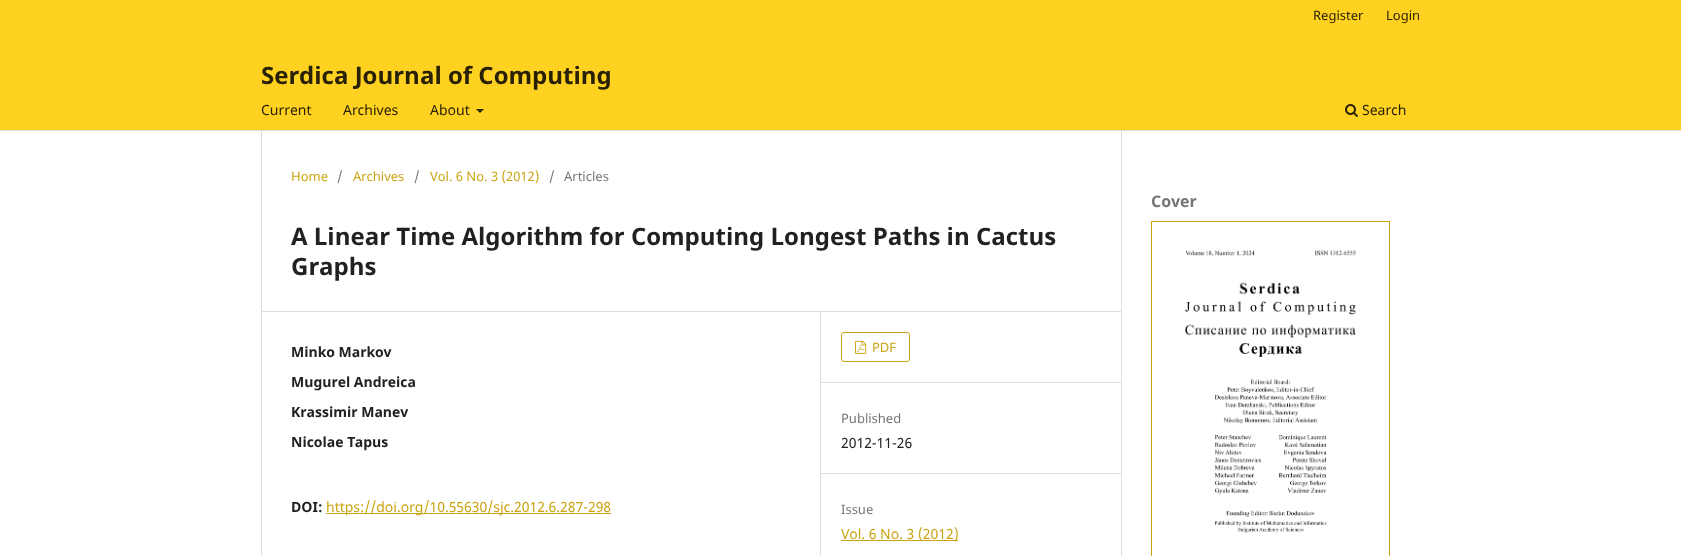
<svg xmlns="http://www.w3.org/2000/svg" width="1681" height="556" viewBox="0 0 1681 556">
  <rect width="100%" height="100%" fill="rgb(255,255,255)"/>
  <rect x="0" y="0" width="1681" height="130" fill="rgb(255,209,32)"/>
  <rect x="0" y="130" width="1681" height="1" fill="rgb(221,221,221)"/>
  <g font-family="Noto Sans" font-size="13" fill="rgb(41,33,5)">
    <text x="1313" y="20">Register</text>
    <text x="1386" y="20">Login</text>
  </g>
  <g font-family="Noto Sans" font-size="14" fill="rgb(41,33,5)">
    <text x="261" y="115">Current</text>
    <text x="343" y="115">Archives</text>
    <text x="430" y="115">About</text>
  </g>
  <path d="M476 109H484L480 113Z" fill="rgb(41,33,5)"/>
  <image x="1345" y="104" width="13" height="13" href="pic1.png"/>
  <text x="1362" y="115" font-family="Noto Sans" font-size="14" fill="rgb(41,33,5)">Search</text>
  <text x="261" y="84" font-family="Noto Sans" font-size="24" font-weight="bold" fill="rgb(41,33,5)">Serdica Journal of Computing</text>
  <rect x="261" y="311" width="860" height="1" fill="rgb(221,221,221)"/>
  <rect x="261" y="131" width="1" height="425" fill="rgb(221,221,221)"/>
  <text x="291" y="181" font-family="Noto Sans" font-size="13" fill="rgb(202,164,19)">Home</text>
  <text x="337" y="181" font-family="Noto Sans" font-size="13" fill="rgb(117,117,117)">/</text>
  <text x="353" y="181" font-family="Noto Sans" font-size="13" fill="rgb(202,164,19)">Archives</text>
  <text x="414" y="181" font-family="Noto Sans" font-size="13" fill="rgb(117,117,117)">/</text>
  <text x="430" y="181" font-family="Noto Sans" font-size="13" fill="rgb(202,164,19)">Vol. 6 No. 3 (2012)</text>
  <g font-family="Noto Sans" font-size="13" fill="rgb(117,117,117)">
    <text x="549" y="181">/</text>
    <text x="564" y="181">Articles</text>
  </g>
  <g font-family="Noto Sans" font-size="24" font-weight="bold" fill="rgb(33,33,33)">
    <text>
      <tspan x="291" y="245">A Linear Time Algorithm for Computing Longest Paths in Cactus</tspan>
      <tspan x="291" y="275">Graphs</tspan>
    </text>
  </g>
  <rect x="820" y="312" width="1" height="244" fill="rgb(221,221,221)"/>
  <g font-family="Noto Sans" font-size="14" font-weight="bold" fill="rgb(33,33,33)">
    <text x="291" y="357">Minko Markov</text>
    <text x="291" y="387">Mugurel Andreica</text>
    <text x="291" y="417">Krassimir Manev</text>
    <text x="291" y="447">Nicolae Tapus</text>
    <text x="291" y="512">DOI:</text>
  </g>
  <rect x="326" y="513" width="285" height="1" fill="rgb(202,164,19)"/>
  <text x="326" y="512" font-family="Noto Sans" font-size="14" fill="rgb(202,164,19)">https://doi.org/10.55630/sjc.2012.6.287-298</text>
  <rect x="821" y="382" width="300" height="1" fill="rgb(221,221,221)"/>
  <rect x="841.5" y="332.5" width="68" height="29" rx="2.5" fill="none" stroke="rgb(202,164,19)"/>
  <image x="855" y="340" width="12" height="14" href="pic2.png"/>
  <text x="872" y="352" font-family="Noto Sans" font-size="13" fill="rgb(202,164,19)">PDF</text>
  <rect x="821" y="473" width="300" height="1" fill="rgb(221,221,221)"/>
  <text x="841" y="423" font-family="Noto Sans" font-size="13" fill="rgb(117,117,117)">Published</text>
  <text x="841" y="448" font-family="Noto Sans" font-size="14" fill="rgb(33,33,33)">2012-11-26</text>
  <text x="841" y="514" font-family="Noto Sans" font-size="13" fill="rgb(117,117,117)">Issue</text>
  <rect x="841" y="540" width="117" height="1" fill="rgb(202,164,19)"/>
  <text x="841" y="539" font-family="Noto Sans" font-size="14" fill="rgb(202,164,19)">Vol. 6 No. 3 (2012)</text>
  <rect x="1121" y="131" width="1" height="425" fill="rgb(221,221,221)"/>
  <text x="1151" y="207" font-family="Noto Sans" font-size="16" font-weight="bold" fill="rgb(117,117,117)">Cover</text>
  <rect x="1151.5" y="221.5" width="238" height="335" fill="none" stroke="rgb(202,164,19)"/>
  <image x="1185" y="250" width="171" height="283" href="pic3.png"/>
</svg>
